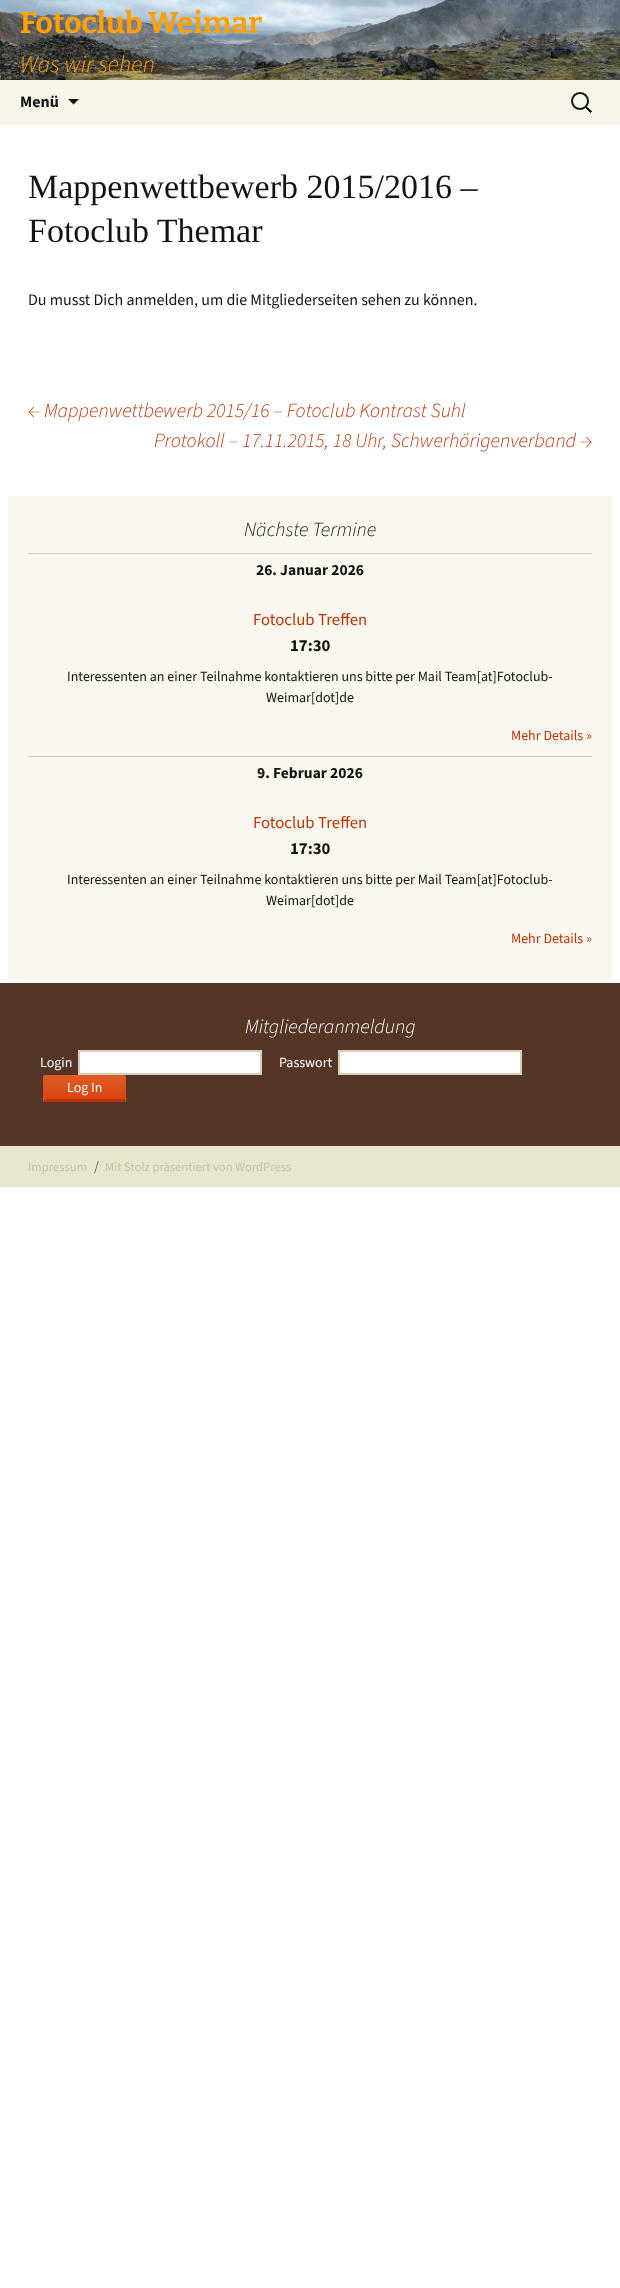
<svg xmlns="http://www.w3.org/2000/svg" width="620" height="2288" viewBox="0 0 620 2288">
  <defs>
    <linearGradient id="g1" gradientUnits="userSpaceOnUse" x1="85" y1="1075" x2="85" y2="1099"><stop offset="0" stop-color="rgb(224,93,34)"/><stop offset="1" stop-color="rgb(217,68,18)"/></linearGradient>
    <linearGradient id="g2" gradientUnits="userSpaceOnUse" x1="85" y1="1099" x2="85" y2="1123"><stop offset="0" stop-color="rgb(224,93,34)"/><stop offset="1" stop-color="rgb(217,68,18)"/></linearGradient>
  </defs>
  <rect width="100%" height="100%" fill="rgb(255,255,255)"/>
  <image x="0" y="0" width="620" height="80" href="pic1.png"/>
  <text x="20" y="33" font-family="Bitter" font-size="30" font-weight="100" fill="rgb(255,161,0)">Fotoclub Weimar</text>
  <text x="20" y="72" font-family="'Source Sans 3'" font-size="24" font-weight="300" font-style="italic" fill="rgb(255,161,0)">Was wir sehen</text>
  <rect x="0" y="80" width="620" height="45" fill="rgb(247,245,231)"/>
  <text x="20" y="107" font-family="'Source Sans 3'" font-size="16" font-weight="bold" fill="rgb(20,20,18)">Menü</text>
  <path d="M68 99L73.5 104.5L79 99Z" fill="rgb(20,20,18)"/>
  <image x="571" y="92" width="21" height="21" href="pic2.png"/>
  <g font-family="Liberation Serif" font-size="34" fill="rgb(20,20,18)">
    <text>
      <tspan x="28" y="198">Mappenwettbewerb 2015/2016 –</tspan>
      <tspan x="28" y="242">Fotoclub Themar</tspan>
    </text>
  </g>
  <text x="28" y="305" font-family="'Source Sans 3'" font-size="16" fill="rgb(20,20,18)">Du musst Dich anmelden, um die Mitgliederseiten sehen zu können.</text>
  <g font-family="'Source Sans 3'" font-size="20" font-weight="300" font-style="italic" fill="rgb(188,54,10)">
    <text x="28" y="417">← Mappenwettbewerb 2015/16 – Fotoclub Kontrast Suhl</text>
    <text x="154" y="447">Protokoll – 17.11.2015, 18 Uhr, Schwerhörigenverband →</text>
  </g>
  <rect x="8" y="496" width="604" height="483" fill="rgb(250,248,238)"/>
  <text x="244" y="536" font-family="'Source Sans 3'" font-size="20" font-weight="300" font-style="italic" fill="rgb(20,20,18)">Nächste Termine</text>
  <rect x="28" y="553" width="564" height="1" fill="rgb(204,204,204)"/>
  <text x="256" y="575" font-family="'Source Sans 3'" font-size="15.5" font-weight="bold" fill="rgb(20,20,18)">26. Januar 2026</text>
  <text x="253" y="625" font-family="'Source Sans 3'" font-size="16.75" fill="rgb(188,54,10)">Fotoclub Treffen</text>
  <text x="290" y="651" font-family="'Source Sans 3'" font-size="16.75" font-weight="bold" fill="rgb(20,20,18)">17:30</text>
  <g font-family="'Source Sans 3'" font-size="14" fill="rgb(20,20,18)">
    <text x="67" y="681">Interessenten an einer Teilnahme kontaktieren uns bitte per Mail Team[at]Fotoclub-</text>
    <text x="266" y="702">Weimar[dot]de</text>
  </g>
  <text x="511" y="740" font-family="'Source Sans 3'" font-size="14" fill="rgb(188,54,10)">Mehr Details »</text>
  <rect x="28" y="756" width="564" height="1" fill="rgb(204,204,204)"/>
  <text x="257" y="778" font-family="'Source Sans 3'" font-size="15.5" font-weight="bold" fill="rgb(20,20,18)">9. Februar 2026</text>
  <text x="253" y="828" font-family="'Source Sans 3'" font-size="16.75" fill="rgb(188,54,10)">Fotoclub Treffen</text>
  <text x="290" y="854" font-family="'Source Sans 3'" font-size="16.75" font-weight="bold" fill="rgb(20,20,18)">17:30</text>
  <g font-family="'Source Sans 3'" font-size="14" fill="rgb(20,20,18)">
    <text x="67" y="884">Interessenten an einer Teilnahme kontaktieren uns bitte per Mail Team[at]Fotoclub-</text>
    <text x="266" y="905">Weimar[dot]de</text>
  </g>
  <text x="511" y="943" font-family="'Source Sans 3'" font-size="14" fill="rgb(188,54,10)">Mehr Details »</text>
  <rect x="0" y="1146" width="620" height="41" fill="rgb(232,229,206)"/>
  <rect x="0" y="983" width="620" height="163" fill="rgb(84,53,38)"/>
  <text x="245" y="1033" font-family="'Source Sans 3'" font-size="20" font-weight="300" font-style="italic" fill="rgb(255,255,255)">Mitgliederanmeldung</text>
  <text x="40" y="1067" font-family="'Source Sans 3'" font-size="14" fill="rgb(255,255,255)">Login</text>
  <rect x="79" y="1051" width="182" height="23" fill="rgb(255,255,255)" stroke="rgb(212,208,186)" stroke-width="2"/>
  <text x="279" y="1067" font-family="'Source Sans 3'" font-size="14" fill="rgb(255,255,255)">Passwort</text>
  <rect x="339" y="1051" width="182" height="23" fill="rgb(255,255,255)" stroke="rgb(212,208,186)" stroke-width="2"/>
  <path d="M45 1075H124C125 1075 126 1076 126 1077V1099H43V1077C43 1076 44 1075 45 1075Z" fill="url(#g1)"/>
  <path d="M43 1099H126V1100C126 1101 125 1102 124 1102H45C44 1102 43 1101 43 1100Z" fill="url(#g2)"/>
  <rect x="44" y="1099" width="81" height="3" fill="rgb(185,50,7)"/>
  <text x="67" y="1092" font-family="'Source Sans 3'" font-size="14" fill="rgb(255,255,255)">Log In</text>
  <text x="28" y="1171" font-family="'Source Sans 3'" font-size="12.6" fill="rgb(199,194,159)">Impressum</text>
  <text x="94" y="1171" font-family="'Source Sans 3'" font-size="14" fill="rgb(104,103,88)">/</text>
  <text x="105" y="1171" font-family="'Source Sans 3'" font-size="12.6" fill="rgb(199,194,159)">Mit Stolz präsentiert von WordPress</text>
</svg>
